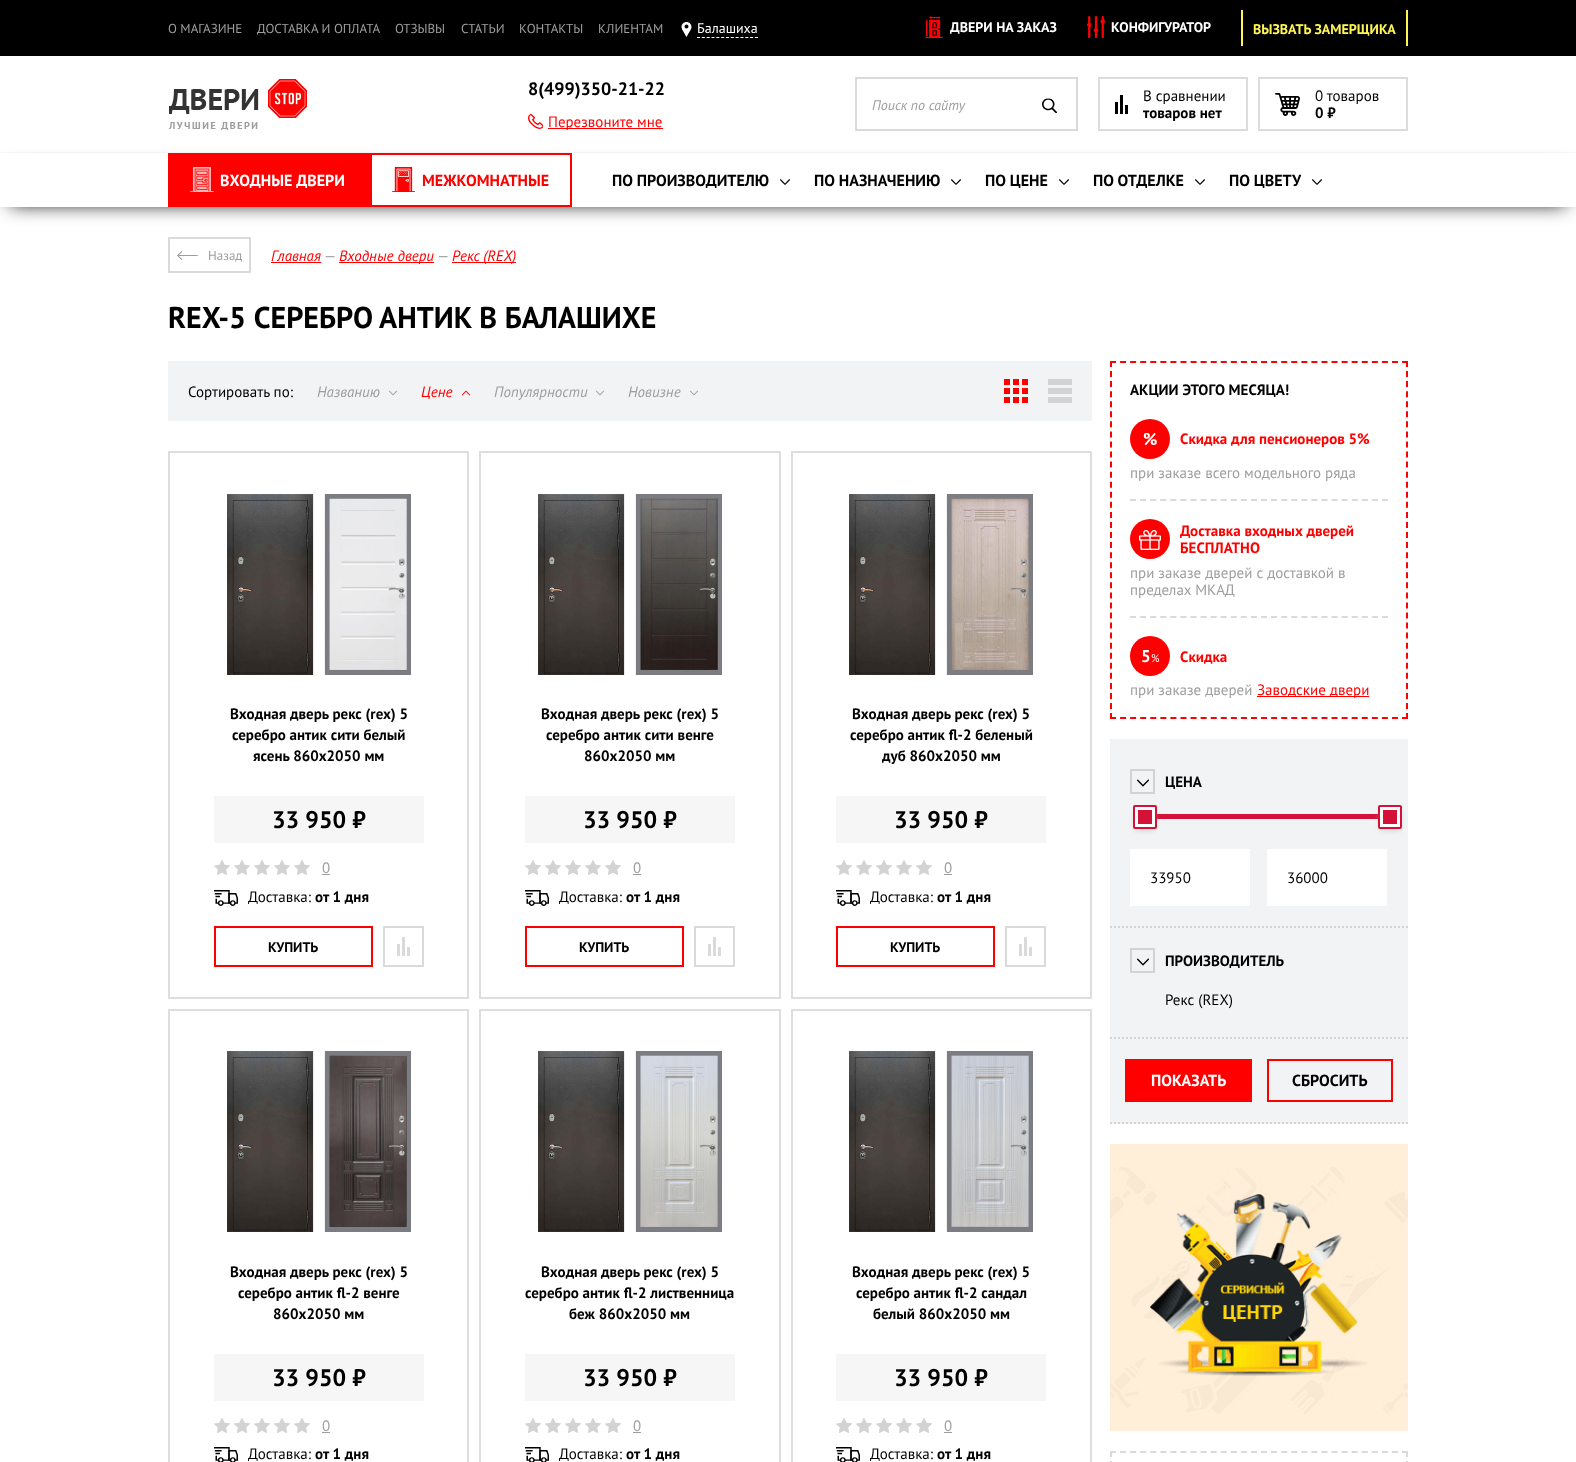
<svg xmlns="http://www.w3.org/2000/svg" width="1576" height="1462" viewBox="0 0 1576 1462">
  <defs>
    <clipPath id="clip1"><path d="M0 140H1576V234H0ZM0 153H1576V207H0Z" clip-rule="evenodd"/></clipPath>
  </defs>
  <rect width="100%" height="100%" fill="rgb(255,255,255)"/>
  <rect x="0" y="0" width="1576" height="56" fill="rgb(0,0,0)"/>
  <g font-family="PT Sans" font-size="13" fill="rgb(158,158,158)">
    <text x="168" y="33">О МАГАЗИНЕ</text>
    <text x="257" y="33">ДОСТАВКА И ОПЛАТА</text>
    <text x="395" y="33">ОТЗЫВЫ</text>
    <text x="461" y="33">СТАТЬИ</text>
    <text x="519" y="33">КОНТАКТЫ</text>
    <text x="598" y="33">КЛИЕНТАМ</text>
  </g>
  <image x="681" y="22" width="11" height="15" href="pic1.png"/>
  <text x="697" y="33" font-family="PT Sans" font-size="14" fill="rgb(255,255,255)">Балашиха</text>
  <path d="M697 37.5H758" fill="none" stroke="rgb(255,255,255)" stroke-dasharray="3 1.83"/>
  <image x="925" y="16" width="18" height="22" href="pic2.png"/>
  <text x="950" y="32" font-family="PT Sans" font-size="14" font-weight="bold" fill="rgb(255,255,255)">ДВЕРИ НА ЗАКАЗ</text>
  <image x="1087" y="16" width="18" height="22" href="pic3.png"/>
  <text x="1111" y="32" font-family="PT Sans" font-size="14" font-weight="bold" fill="rgb(255,255,255)">КОНФИГУРАТОР</text>
  <rect x="1406" y="10" width="2" height="36" fill="rgb(255,245,85)"/>
  <rect x="1241" y="10" width="2" height="36" fill="rgb(255,245,85)"/>
  <text x="1253" y="34" font-family="PT Sans" font-size="14" font-weight="bold" fill="rgb(255,245,85)">ВЫЗВАТЬ ЗАМЕРЩИКА</text>
  <rect x="0" y="152" width="1576" height="1" fill="rgb(249,249,249)"/>
  <image x="168" y="79" width="139" height="51" href="pic4.png"/>
  <text x="528" y="95" font-family="PT Sans" font-size="18" font-weight="bold" fill="rgb(0,0,0)">8(499)350-21-22</text>
  <image x="528" y="114" width="15" height="15" href="pic5.png"/>
  <rect x="548" y="128" width="115" height="1" fill="rgb(255,0,0)"/>
  <text x="548" y="127" font-family="PT Sans" font-size="15" fill="rgb(255,0,0)">Перезвоните мне</text>
  <rect x="856" y="78" width="221" height="52" fill="none" stroke="rgb(218,218,218)" stroke-width="2"/>
  <text x="872" y="110" font-family="PT Sans" font-size="14" font-style="italic" fill="rgb(158,158,158)">Поиск по сайту</text>
  <image x="1042" y="98" width="15" height="15" href="pic6.png"/>
  <rect x="1099" y="78" width="148" height="52" fill="none" stroke="rgb(220,220,220)" stroke-width="2"/>
  <image x="1115" y="95" width="13" height="19" href="pic7.png"/>
  <text x="1143" y="101" font-family="PT Sans" font-size="15" fill="rgb(0,0,0)">В сравнении</text>
  <text x="1143" y="118" font-family="PT Sans" font-size="15" font-weight="bold" fill="rgb(0,0,0)">товаров нет</text>
  <rect x="1259" y="78" width="148" height="52" fill="none" stroke="rgb(220,220,220)" stroke-width="2"/>
  <image x="1275" y="93" width="25" height="23" href="pic8.png"/>
  <text x="1315" y="101" font-family="PT Sans" font-size="15" fill="rgb(0,0,0)">0 товаров</text>
  <text x="1315" y="118" font-family="PT Sans" font-size="15" font-weight="bold" fill="rgb(0,0,0)">0 ₽</text>
  <g clip-path="url(#clip1)">
    <rect x="10" y="170" width="1556" height="34" fill="rgb(0,0,0)" filter="blur(9.5px)"/>
  </g>
  <rect x="168" y="153" width="202" height="54" fill="rgb(255,0,0)"/>
  <image x="190" y="167" width="24" height="25" href="pic9.png"/>
  <text x="220" y="186" font-family="PT Sans" font-size="16" font-weight="bold" fill="rgb(255,255,255)">ВХОДНЫЕ ДВЕРИ</text>
  <text x="612" y="186" font-family="PT Sans" font-size="16" font-weight="bold" fill="rgb(0,0,0)">ПО ПРОИЗВОДИТЕЛЮ</text>
  <image x="780" y="179" width="10" height="6" href="pic10.png"/>
  <text x="814" y="186" font-family="PT Sans" font-size="16" font-weight="bold" fill="rgb(0,0,0)">ПО НАЗНАЧЕНИЮ</text>
  <image x="951" y="179" width="10" height="6" href="pic10.png"/>
  <text x="985" y="186" font-family="PT Sans" font-size="16" font-weight="bold" fill="rgb(0,0,0)">ПО ЦЕНЕ</text>
  <image x="1059" y="179" width="10" height="6" href="pic10.png"/>
  <text x="1093" y="186" font-family="PT Sans" font-size="16" font-weight="bold" fill="rgb(0,0,0)">ПО ОТДЕЛКЕ</text>
  <image x="1195" y="179" width="10" height="6" href="pic10.png"/>
  <text x="1229" y="186" font-family="PT Sans" font-size="16" font-weight="bold" fill="rgb(0,0,0)">ПО ЦВЕТУ</text>
  <image x="1312" y="179" width="10" height="6" href="pic10.png"/>
  <rect x="371" y="154" width="200" height="52" fill="none" stroke="rgb(255,0,0)" stroke-width="2"/>
  <image x="392" y="167" width="23" height="25" href="pic11.png"/>
  <text x="422" y="186" font-family="PT Sans" font-size="16" font-weight="bold" fill="rgb(255,0,0)">МЕЖКОМНАТНЫЕ</text>
  <rect x="169" y="238" width="81" height="34" fill="none" stroke="rgb(218,218,218)" stroke-width="2"/>
  <image x="177" y="251" width="21" height="9" href="pic12.png"/>
  <text x="208" y="260" font-family="PT Sans" font-size="13" fill="rgb(158,158,158)">Назад</text>
  <text x="271" y="261" font-family="PT Sans" font-size="15" font-style="italic" fill="rgb(255,0,0)">Главная</text>
  <rect x="271" y="262" width="50" height="1" fill="rgb(255,0,0)"/>
  <text x="324" y="261" font-family="PT Sans" font-size="15" fill="rgb(158,158,158)">—</text>
  <rect x="339" y="262" width="95" height="1" fill="rgb(255,0,0)"/>
  <text x="339" y="261" font-family="PT Sans" font-size="15" font-style="italic" fill="rgb(255,0,0)">Входные двери</text>
  <text x="437" y="261" font-family="PT Sans" font-size="15" fill="rgb(158,158,158)">—</text>
  <rect x="452" y="262" width="64" height="1" fill="rgb(255,0,0)"/>
  <text x="452" y="261" font-family="PT Sans" font-size="15" font-style="italic" fill="rgb(255,0,0)">Рекс (REX)</text>
  <text x="168" y="328" font-family="PT Sans" font-size="30" font-weight="bold" fill="rgb(0,0,0)">REX-5 СЕРЕБРО АНТИК В БАЛАШИХЕ</text>
  <rect x="168" y="361" width="924" height="60" fill="rgb(242,243,245)"/>
  <text x="188" y="397" font-family="PT Sans" font-size="15" fill="rgb(0,0,0)">Сортировать по:</text>
  <text x="317" y="397" font-family="PT Sans" font-size="15" font-style="italic" fill="rgb(158,158,158)">Названию</text>
  <image x="389" y="390" width="8" height="6" href="pic13.png"/>
  <text x="421" y="397" font-family="PT Sans" font-size="15" font-style="italic" fill="rgb(255,0,0)">Цене</text>
  <image x="462" y="390" width="8" height="6" href="pic14.png"/>
  <text x="494" y="397" font-family="PT Sans" font-size="15" font-style="italic" fill="rgb(158,158,158)">Популярности</text>
  <image x="596" y="390" width="8" height="6" href="pic13.png"/>
  <text x="628" y="397" font-family="PT Sans" font-size="15" font-style="italic" fill="rgb(158,158,158)">Новизне</text>
  <image x="690" y="390" width="8" height="6" href="pic13.png"/>
  <image x="1004" y="379" width="24" height="24" href="pic15.png"/>
  <image x="1048" y="379" width="24" height="24" href="pic16.png"/>
  <rect x="169" y="452" width="299" height="546" fill="none" stroke="rgb(222,222,222)" stroke-width="2"/>
  <image x="227" y="494" width="184" height="181" href="pic17.png"/>
  <g font-family="PT Sans" font-size="15" font-weight="bold" fill="rgb(0,0,0)">
    <text x="230" y="719">Входная дверь рекс (rex) 5</text>
    <text x="232" y="740">серебро антик сити белый</text>
    <text x="253" y="761">ясень 860х2050 мм</text>
  </g>
  <rect x="214" y="796" width="210" height="47" fill="rgb(246,246,246)"/>
  <text x="272" y="828" font-family="PT Sans" font-size="24" font-weight="bold" fill="rgb(0,0,0)">33 950 ₽</text>
  <image x="214" y="860" width="96" height="15" href="pic18.png"/>
  <text x="322" y="873" font-family="PT Sans" font-size="15" fill="rgb(158,158,158)">0</text>
  <rect x="322" y="874" width="8" height="1" fill="rgb(158,158,158)"/>
  <image x="214" y="890" width="24" height="16" href="pic19.png"/>
  <text x="248" y="902" font-family="PT Sans" font-size="15" fill="rgb(0,0,0)">Доставка:</text>
  <text x="315" y="902" font-family="PT Sans" font-size="15" font-weight="bold" fill="rgb(0,0,0)">от 1 дня</text>
  <rect x="215" y="927" width="157" height="39" fill="none" stroke="rgb(255,0,0)" stroke-width="2"/>
  <text x="268" y="952" font-family="PT Sans" font-size="14" font-weight="bold" fill="rgb(0,0,0)">КУПИТЬ</text>
  <rect x="384" y="927" width="39" height="39" fill="none" stroke="rgb(218,218,218)" stroke-width="2"/>
  <image x="397" y="937" width="13" height="19" href="pic20.png"/>
  <rect x="480" y="452" width="300" height="546" fill="none" stroke="rgb(222,222,222)" stroke-width="2"/>
  <image x="538" y="494" width="184" height="181" href="pic21.png"/>
  <g font-family="PT Sans" font-size="15" font-weight="bold" fill="rgb(0,0,0)">
    <text x="541" y="719">Входная дверь рекс (rex) 5</text>
    <text x="546" y="740">серебро антик сити венге</text>
    <text x="584" y="761">860х2050 мм</text>
  </g>
  <rect x="525" y="796" width="210" height="47" fill="rgb(246,246,246)"/>
  <text x="583" y="828" font-family="PT Sans" font-size="24" font-weight="bold" fill="rgb(0,0,0)">33 950 ₽</text>
  <image x="525" y="860" width="96" height="15" href="pic18.png"/>
  <text x="633" y="873" font-family="PT Sans" font-size="15" fill="rgb(158,158,158)">0</text>
  <rect x="633" y="874" width="8" height="1" fill="rgb(158,158,158)"/>
  <image x="525" y="890" width="24" height="16" href="pic19.png"/>
  <text x="559" y="902" font-family="PT Sans" font-size="15" fill="rgb(0,0,0)">Доставка:</text>
  <text x="626" y="902" font-family="PT Sans" font-size="15" font-weight="bold" fill="rgb(0,0,0)">от 1 дня</text>
  <rect x="526" y="927" width="157" height="39" fill="none" stroke="rgb(255,0,0)" stroke-width="2"/>
  <text x="579" y="952" font-family="PT Sans" font-size="14" font-weight="bold" fill="rgb(0,0,0)">КУПИТЬ</text>
  <rect x="695" y="927" width="39" height="39" fill="none" stroke="rgb(218,218,218)" stroke-width="2"/>
  <image x="708" y="937" width="13" height="19" href="pic20.png"/>
  <rect x="792" y="452" width="299" height="546" fill="none" stroke="rgb(222,222,222)" stroke-width="2"/>
  <image x="849" y="494" width="184" height="181" href="pic22.png"/>
  <g font-family="PT Sans" font-size="15" font-weight="bold" fill="rgb(0,0,0)">
    <text x="852" y="719">Входная дверь рекс (rex) 5</text>
    <text x="850" y="740">серебро антик fl-2 беленый</text>
    <text x="882" y="761">дуб 860х2050 мм</text>
  </g>
  <rect x="836" y="796" width="210" height="47" fill="rgb(246,246,246)"/>
  <text x="894" y="828" font-family="PT Sans" font-size="24" font-weight="bold" fill="rgb(0,0,0)">33 950 ₽</text>
  <image x="836" y="860" width="96" height="15" href="pic18.png"/>
  <text x="944" y="873" font-family="PT Sans" font-size="15" fill="rgb(158,158,158)">0</text>
  <rect x="944" y="874" width="8" height="1" fill="rgb(158,158,158)"/>
  <image x="836" y="890" width="24" height="16" href="pic19.png"/>
  <text x="870" y="902" font-family="PT Sans" font-size="15" fill="rgb(0,0,0)">Доставка:</text>
  <text x="937" y="902" font-family="PT Sans" font-size="15" font-weight="bold" fill="rgb(0,0,0)">от 1 дня</text>
  <rect x="837" y="927" width="157" height="39" fill="none" stroke="rgb(255,0,0)" stroke-width="2"/>
  <text x="890" y="952" font-family="PT Sans" font-size="14" font-weight="bold" fill="rgb(0,0,0)">КУПИТЬ</text>
  <rect x="1006" y="927" width="39" height="39" fill="none" stroke="rgb(218,218,218)" stroke-width="2"/>
  <image x="1019" y="937" width="13" height="19" href="pic20.png"/>
  <rect x="169" y="1010" width="299" height="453" fill="none" stroke="rgb(222,222,222)" stroke-width="2"/>
  <image x="227" y="1051" width="184" height="181" href="pic23.png"/>
  <g font-family="PT Sans" font-size="15" font-weight="bold" fill="rgb(0,0,0)">
    <text x="230" y="1277">Входная дверь рекс (rex) 5</text>
    <text x="238" y="1298">серебро антик fl-2 венге</text>
    <text x="273" y="1319">860х2050 мм</text>
  </g>
  <rect x="214" y="1354" width="210" height="47" fill="rgb(246,246,246)"/>
  <text x="272" y="1386" font-family="PT Sans" font-size="24" font-weight="bold" fill="rgb(0,0,0)">33 950 ₽</text>
  <image x="214" y="1418" width="96" height="15" href="pic18.png"/>
  <text x="322" y="1431" font-family="PT Sans" font-size="15" fill="rgb(158,158,158)">0</text>
  <rect x="322" y="1432" width="8" height="1" fill="rgb(158,158,158)"/>
  <image x="214" y="1447" width="24" height="15" href="pic24.png"/>
  <text x="248" y="1459" font-family="PT Sans" font-size="15" fill="rgb(0,0,0)">Доставка:</text>
  <text x="315" y="1459" font-family="PT Sans" font-size="15" font-weight="bold" fill="rgb(0,0,0)">от 1 дня</text>
  <rect x="480" y="1010" width="300" height="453" fill="none" stroke="rgb(222,222,222)" stroke-width="2"/>
  <image x="538" y="1051" width="184" height="181" href="pic25.png"/>
  <g font-family="PT Sans" font-size="15" font-weight="bold" fill="rgb(0,0,0)">
    <text x="541" y="1277">Входная дверь рекс (rex) 5</text>
    <text x="525" y="1298">серебро антик fl-2 лиственница</text>
    <text x="569" y="1319">беж 860х2050 мм</text>
  </g>
  <rect x="525" y="1354" width="210" height="47" fill="rgb(246,246,246)"/>
  <text x="583" y="1386" font-family="PT Sans" font-size="24" font-weight="bold" fill="rgb(0,0,0)">33 950 ₽</text>
  <image x="525" y="1418" width="96" height="15" href="pic18.png"/>
  <text x="633" y="1431" font-family="PT Sans" font-size="15" fill="rgb(158,158,158)">0</text>
  <rect x="633" y="1432" width="8" height="1" fill="rgb(158,158,158)"/>
  <image x="525" y="1447" width="24" height="15" href="pic24.png"/>
  <text x="559" y="1459" font-family="PT Sans" font-size="15" fill="rgb(0,0,0)">Доставка:</text>
  <text x="626" y="1459" font-family="PT Sans" font-size="15" font-weight="bold" fill="rgb(0,0,0)">от 1 дня</text>
  <rect x="792" y="1010" width="299" height="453" fill="none" stroke="rgb(222,222,222)" stroke-width="2"/>
  <image x="849" y="1051" width="184" height="181" href="pic26.png"/>
  <g font-family="PT Sans" font-size="15" font-weight="bold" fill="rgb(0,0,0)">
    <text x="852" y="1277">Входная дверь рекс (rex) 5</text>
    <text x="856" y="1298">серебро антик fl-2 сандал</text>
    <text x="873" y="1319">белый 860х2050 мм</text>
  </g>
  <rect x="836" y="1354" width="210" height="47" fill="rgb(246,246,246)"/>
  <text x="894" y="1386" font-family="PT Sans" font-size="24" font-weight="bold" fill="rgb(0,0,0)">33 950 ₽</text>
  <image x="836" y="1418" width="96" height="15" href="pic18.png"/>
  <text x="944" y="1431" font-family="PT Sans" font-size="15" fill="rgb(158,158,158)">0</text>
  <rect x="944" y="1432" width="8" height="1" fill="rgb(158,158,158)"/>
  <image x="836" y="1447" width="24" height="15" href="pic24.png"/>
  <text x="870" y="1459" font-family="PT Sans" font-size="15" fill="rgb(0,0,0)">Доставка:</text>
  <text x="937" y="1459" font-family="PT Sans" font-size="15" font-weight="bold" fill="rgb(0,0,0)">от 1 дня</text>
  <path d="M1110 362H1408" fill="none" stroke="rgb(255,0,0)" stroke-width="2" stroke-dasharray="6 4.07"/>
  <path d="M1407 361V719" fill="none" stroke="rgb(255,0,0)" stroke-width="2" stroke-dasharray="6 4.06"/>
  <path d="M1110 718H1408" fill="none" stroke="rgb(255,0,0)" stroke-width="2" stroke-dasharray="6 4.07"/>
  <path d="M1111 361V719" fill="none" stroke="rgb(255,0,0)" stroke-width="2" stroke-dasharray="6 4.06"/>
  <text x="1130" y="395" font-family="PT Sans" font-size="15" font-weight="bold" fill="rgb(0,0,0)">АКЦИИ ЭТОГО МЕСЯЦА!</text>
  <path d="M1130 500H1388" fill="none" stroke="rgb(218,218,218)" stroke-width="2" stroke-dasharray="6 4.08"/>
  <circle cx="1150" cy="439" r="20" fill="rgb(255,0,0)"/>
  <text x="1143" y="445" font-family="PT Sans" font-size="17" font-weight="bold" fill="rgb(255,255,255)">%</text>
  <text x="1180" y="444" font-family="PT Sans" font-size="15" font-weight="bold" fill="rgb(255,0,0)">Скидка для пенсионеров 5%</text>
  <text x="1130" y="478" font-family="PT Sans" font-size="15" fill="rgb(158,158,158)">при заказе всего модельного ряда</text>
  <path d="M1130 617H1388" fill="none" stroke="rgb(218,218,218)" stroke-width="2" stroke-dasharray="6 4.08"/>
  <circle cx="1150" cy="539" r="20" fill="rgb(255,0,0)"/>
  <image x="1139" y="530" width="22" height="20" href="pic27.png"/>
  <g font-family="PT Sans" font-size="15" font-weight="bold" fill="rgb(255,0,0)">
    <text>
      <tspan x="1180" y="536">Доставка входных дверей</tspan>
      <tspan x="1180" y="553">БЕСПЛАТНО</tspan>
    </text>
  </g>
  <g font-family="PT Sans" font-size="15" fill="rgb(158,158,158)">
    <text>
      <tspan x="1130" y="578">при заказе дверей с доставкой в</tspan>
      <tspan x="1130" y="595">пределах МКАД</tspan>
    </text>
  </g>
  <circle cx="1150" cy="656" r="20" fill="rgb(255,0,0)"/>
  <text x="1141" y="662" font-family="PT Sans" font-size="17" font-weight="bold" fill="rgb(255,255,255)">5</text>
  <text x="1151" y="662" font-family="PT Sans" font-size="11" fill="rgb(255,255,255)">%</text>
  <text x="1180" y="662" font-family="PT Sans" font-size="15" font-weight="bold" fill="rgb(255,0,0)">Скидка</text>
  <text x="1130" y="695" font-family="PT Sans" font-size="15" fill="rgb(158,158,158)">при заказе дверей</text>
  <rect x="1257" y="696" width="112" height="1" fill="rgb(255,0,0)"/>
  <text x="1257" y="695" font-family="PT Sans" font-size="15" fill="rgb(255,0,0)">Заводские двери</text>
  <rect x="1110" y="739" width="298" height="385" fill="rgb(242,243,245)"/>
  <path d="M1110 927H1408" fill="none" stroke="rgb(212,212,212)" stroke-width="2" stroke-dasharray="2 2"/>
  <rect x="1131" y="770" width="23" height="23" fill="none" stroke="rgb(211,211,211)" stroke-width="2"/>
  <image x="1137" y="779" width="12" height="8" href="pic28.png"/>
  <text x="1165" y="787" font-family="PT Sans" font-size="15" font-weight="bold" fill="rgb(0,0,0)">ЦЕНА</text>
  <rect x="1150" y="814" width="230" height="5" fill="rgb(212,17,55)"/>
  <rect x="1136" y="811" width="18" height="18" fill="rgb(187,187,187)" filter="blur(3px)"/>
  <rect x="1134" y="806" width="22" height="22" rx="1" fill="rgb(255,255,255)" stroke="rgb(212,17,55)" stroke-width="2"/>
  <rect x="1138" y="810" width="14" height="14" fill="rgb(212,17,55)"/>
  <rect x="1381" y="811" width="18" height="18" fill="rgb(187,187,187)" filter="blur(3px)"/>
  <rect x="1379" y="806" width="22" height="22" rx="1" fill="rgb(255,255,255)" stroke="rgb(212,17,55)" stroke-width="2"/>
  <rect x="1383" y="810" width="14" height="14" fill="rgb(212,17,55)"/>
  <rect x="1130" y="849" width="120" height="57" fill="rgb(255,255,255)"/>
  <text x="1150" y="883" font-family="PT Sans" font-size="15" fill="rgb(0,0,0)">33950</text>
  <rect x="1267" y="849" width="120" height="57" fill="rgb(255,255,255)"/>
  <text x="1287" y="883" font-family="PT Sans" font-size="15" fill="rgb(0,0,0)">36000</text>
  <path d="M1110 1038H1408" fill="none" stroke="rgb(212,212,212)" stroke-width="2" stroke-dasharray="2 2"/>
  <rect x="1131" y="949" width="23" height="23" fill="none" stroke="rgb(211,211,211)" stroke-width="2"/>
  <image x="1137" y="958" width="12" height="8" href="pic28.png"/>
  <text x="1165" y="966" font-family="PT Sans" font-size="15" font-weight="bold" fill="rgb(0,0,0)">ПРОИЗВОДИТЕЛЬ</text>
  <text x="1165" y="1005" font-family="PT Sans" font-size="15" fill="rgb(0,0,0)">Рекс (REX)</text>
  <path d="M1110 1123H1408" fill="none" stroke="rgb(212,212,212)" stroke-width="2" stroke-dasharray="2 2"/>
  <rect x="1125" y="1059" width="127" height="43" fill="rgb(255,0,0)"/>
  <text x="1151" y="1086" font-family="PT Sans" font-size="16" font-weight="bold" fill="rgb(255,255,255)">ПОКАЗАТЬ</text>
  <rect x="1268" y="1060" width="124" height="41" fill="none" stroke="rgb(255,0,0)" stroke-width="2"/>
  <text x="1292" y="1086" font-family="PT Sans" font-size="16" font-weight="bold" fill="rgb(0,0,0)">СБРОСИТЬ</text>
  <rect x="1110" y="1144" width="298" height="287" fill="rgb(255,238,216)"/>
  <image x="1110" y="1167" width="298" height="247" href="pic29.png"/>
  <image x="1150" y="1194" width="217" height="182" href="pic30.png"/>
  <path d="M1110 1452H1408" fill="none" stroke="rgb(218,218,218)" stroke-width="2" stroke-dasharray="6 4.07"/>
  <path d="M1407 1451V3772" fill="none" stroke="rgb(218,218,218)" stroke-width="2" stroke-dasharray="6 3.98"/>
  <path d="M1111 1451V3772" fill="none" stroke="rgb(218,218,218)" stroke-width="2" stroke-dasharray="6 3.98"/>
</svg>
